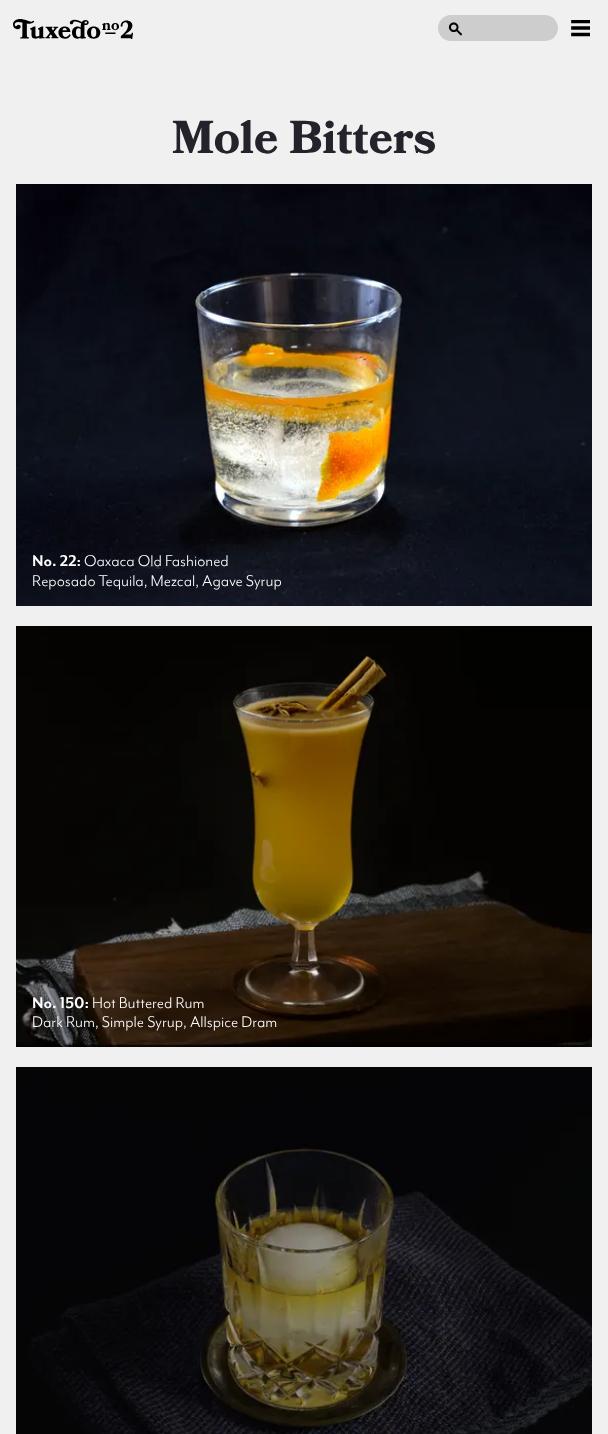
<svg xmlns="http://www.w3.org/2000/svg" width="608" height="1434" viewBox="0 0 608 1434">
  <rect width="100%" height="100%" fill="rgb(240,240,240)"/>
  <image x="13" y="19" width="120" height="20" href="pic1.png"/>
  <rect x="438" y="15" width="120" height="26" rx="13" fill="rgb(205,205,205)"/>
  <image x="448" y="22" width="14" height="14" href="pic2.png"/>
  <image x="571" y="20" width="19" height="17" href="pic3.png"/>
  <text x="172" y="153" font-family="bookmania" font-size="46" font-weight="bold" fill="rgb(36,34,42)">Mole Bitters</text>
  <image x="16" y="184" width="576" height="422" href="pic4.png"/>
  <text x="32" y="566" font-family="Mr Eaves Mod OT" font-size="18" font-weight="bold" fill="rgb(255,255,255)">No. 22:</text>
  <g font-family="Mr Eaves Mod OT" font-size="18" font-weight="300" fill="rgb(255,255,255)">
    <text x="84" y="566">Oaxaca Old Fashioned</text>
    <text x="32" y="586">Reposado Tequila, Mezcal, Agave Syrup</text>
  </g>
  <image x="16" y="626" width="576" height="421" href="pic5.png"/>
  <text x="32" y="1008" font-family="Mr Eaves Mod OT" font-size="18" font-weight="bold" fill="rgb(255,255,255)">No. 150:</text>
  <g font-family="Mr Eaves Mod OT" font-size="18" font-weight="300" fill="rgb(255,255,255)">
    <text x="92" y="1008">Hot Buttered Rum</text>
    <text x="32" y="1027">Dark Rum, Simple Syrup, Allspice Dram</text>
  </g>
  <image x="16" y="1067" width="576" height="367" href="pic6.png"/>
</svg>
